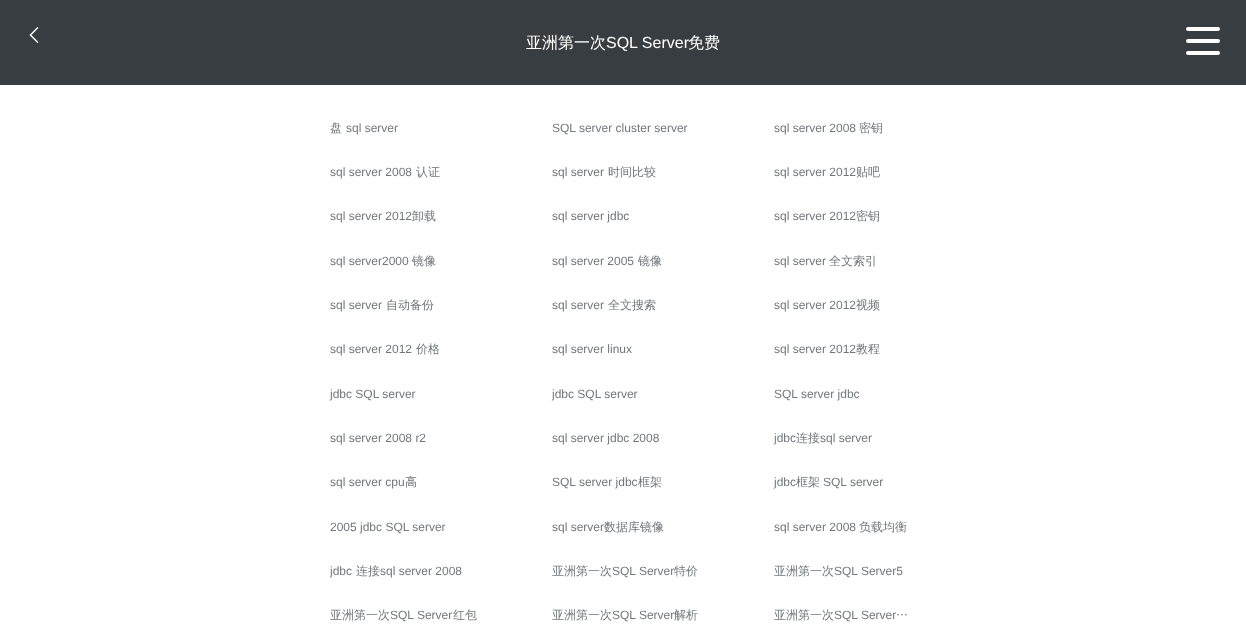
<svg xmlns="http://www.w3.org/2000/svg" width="1246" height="624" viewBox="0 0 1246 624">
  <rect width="100%" height="100%" fill="rgb(255,255,255)"/>
  <rect x="0" y="0" width="1246" height="85" fill="rgb(56,61,65)"/>
  <image x="29" y="27" width="10" height="16" href="pic1.png"/>
  <text x="526" y="48" font-family="WenQuanYi Zen Hei" font-size="16" font-weight="500" fill="rgb(255,255,255)">亚洲第一次</text>
  <text x="606" y="48" font-family="Liberation Sans" font-size="16" fill="rgb(255,255,255)">SQL Server</text>
  <text x="688" y="48" font-family="WenQuanYi Zen Hei" font-size="16" font-weight="500" fill="rgb(255,255,255)">免费</text>
  <rect x="1186" y="27" width="34" height="4" rx="2" fill="rgb(255,255,255)"/>
  <rect x="1186" y="39" width="34" height="4" rx="2" fill="rgb(255,255,255)"/>
  <rect x="1186" y="51" width="34" height="4" rx="2" fill="rgb(255,255,255)"/>
  <text x="330" y="132" font-family="WenQuanYi Zen Hei" font-size="12" font-weight="500" fill="rgb(115,119,122)">盘</text>
  <g font-family="Liberation Sans" font-size="12" fill="rgb(115,119,122)">
    <text x="346" y="132">sql server</text>
    <text x="552" y="132">SQL server cluster server</text>
    <text x="774" y="132">sql server 2008</text>
  </g>
  <text x="859" y="132" font-family="WenQuanYi Zen Hei" font-size="12" font-weight="500" fill="rgb(115,119,122)">密钥</text>
  <text x="330" y="176" font-family="Liberation Sans" font-size="12" fill="rgb(115,119,122)">sql server 2008</text>
  <text x="416" y="176" font-family="WenQuanYi Zen Hei" font-size="12" font-weight="500" fill="rgb(115,119,122)">认证</text>
  <text x="552" y="176" font-family="Liberation Sans" font-size="12" fill="rgb(115,119,122)">sql server</text>
  <text x="608" y="176" font-family="WenQuanYi Zen Hei" font-size="12" font-weight="500" fill="rgb(115,119,122)">时间比较</text>
  <text x="774" y="176" font-family="Liberation Sans" font-size="12" fill="rgb(115,119,122)">sql server 2012</text>
  <text x="856" y="176" font-family="WenQuanYi Zen Hei" font-size="12" font-weight="500" fill="rgb(115,119,122)">贴吧</text>
  <text x="330" y="220" font-family="Liberation Sans" font-size="12" fill="rgb(115,119,122)">sql server 2012</text>
  <text x="412" y="220" font-family="WenQuanYi Zen Hei" font-size="12" font-weight="500" fill="rgb(115,119,122)">卸载</text>
  <g font-family="Liberation Sans" font-size="12" fill="rgb(115,119,122)">
    <text x="552" y="220">sql server jdbc</text>
    <text x="774" y="220">sql server 2012</text>
  </g>
  <text x="856" y="220" font-family="WenQuanYi Zen Hei" font-size="12" font-weight="500" fill="rgb(115,119,122)">密钥</text>
  <text x="330" y="265" font-family="Liberation Sans" font-size="12" fill="rgb(115,119,122)">sql server2000</text>
  <text x="412" y="265" font-family="WenQuanYi Zen Hei" font-size="12" font-weight="500" fill="rgb(115,119,122)">镜像</text>
  <text x="552" y="265" font-family="Liberation Sans" font-size="12" fill="rgb(115,119,122)">sql server 2005</text>
  <text x="638" y="265" font-family="WenQuanYi Zen Hei" font-size="12" font-weight="500" fill="rgb(115,119,122)">镜像</text>
  <text x="774" y="265" font-family="Liberation Sans" font-size="12" fill="rgb(115,119,122)">sql server</text>
  <text x="829" y="265" font-family="WenQuanYi Zen Hei" font-size="12" font-weight="500" fill="rgb(115,119,122)">全文索引</text>
  <text x="330" y="309" font-family="Liberation Sans" font-size="12" fill="rgb(115,119,122)">sql server</text>
  <text x="386" y="309" font-family="WenQuanYi Zen Hei" font-size="12" font-weight="500" fill="rgb(115,119,122)">自动备份</text>
  <text x="552" y="309" font-family="Liberation Sans" font-size="12" fill="rgb(115,119,122)">sql server</text>
  <text x="608" y="309" font-family="WenQuanYi Zen Hei" font-size="12" font-weight="500" fill="rgb(115,119,122)">全文搜索</text>
  <text x="774" y="309" font-family="Liberation Sans" font-size="12" fill="rgb(115,119,122)">sql server 2012</text>
  <text x="856" y="309" font-family="WenQuanYi Zen Hei" font-size="12" font-weight="500" fill="rgb(115,119,122)">视频</text>
  <text x="330" y="353" font-family="Liberation Sans" font-size="12" fill="rgb(115,119,122)">sql server 2012</text>
  <text x="416" y="353" font-family="WenQuanYi Zen Hei" font-size="12" font-weight="500" fill="rgb(115,119,122)">价格</text>
  <g font-family="Liberation Sans" font-size="12" fill="rgb(115,119,122)">
    <text x="552" y="353">sql server linux</text>
    <text x="774" y="353">sql server 2012</text>
  </g>
  <text x="856" y="353" font-family="WenQuanYi Zen Hei" font-size="12" font-weight="500" fill="rgb(115,119,122)">教程</text>
  <g font-family="Liberation Sans" font-size="12" fill="rgb(115,119,122)">
    <text x="330" y="398">jdbc SQL server</text>
    <text x="552" y="398">jdbc SQL server</text>
    <text x="774" y="398">SQL server jdbc</text>
    <text x="330" y="442">sql server 2008 r2</text>
    <text x="552" y="442">sql server jdbc 2008</text>
    <text x="774" y="442">jdbc</text>
  </g>
  <text x="796" y="442" font-family="WenQuanYi Zen Hei" font-size="12" font-weight="500" fill="rgb(115,119,122)">连接</text>
  <g font-family="Liberation Sans" font-size="12" fill="rgb(115,119,122)">
    <text x="820" y="442">sql server</text>
    <text x="330" y="486">sql server cpu</text>
  </g>
  <text x="405" y="486" font-family="WenQuanYi Zen Hei" font-size="12" font-weight="500" fill="rgb(115,119,122)">高</text>
  <text x="552" y="486" font-family="Liberation Sans" font-size="12" fill="rgb(115,119,122)">SQL server jdbc</text>
  <text x="638" y="486" font-family="WenQuanYi Zen Hei" font-size="12" font-weight="500" fill="rgb(115,119,122)">框架</text>
  <text x="774" y="486" font-family="Liberation Sans" font-size="12" fill="rgb(115,119,122)">jdbc</text>
  <text x="796" y="486" font-family="WenQuanYi Zen Hei" font-size="12" font-weight="500" fill="rgb(115,119,122)">框架</text>
  <g font-family="Liberation Sans" font-size="12" fill="rgb(115,119,122)">
    <text x="823" y="486">SQL server</text>
    <text x="330" y="531">2005 jdbc SQL server</text>
    <text x="552" y="531">sql server</text>
  </g>
  <text x="604" y="531" font-family="WenQuanYi Zen Hei" font-size="12" font-weight="500" fill="rgb(115,119,122)">数据库镜像</text>
  <text x="774" y="531" font-family="Liberation Sans" font-size="12" fill="rgb(115,119,122)">sql server 2008</text>
  <text x="859" y="531" font-family="WenQuanYi Zen Hei" font-size="12" font-weight="500" fill="rgb(115,119,122)">负载均衡</text>
  <text x="330" y="575" font-family="Liberation Sans" font-size="12" fill="rgb(115,119,122)">jdbc</text>
  <text x="356" y="575" font-family="WenQuanYi Zen Hei" font-size="12" font-weight="500" fill="rgb(115,119,122)">连接</text>
  <text x="380" y="575" font-family="Liberation Sans" font-size="12" fill="rgb(115,119,122)">sql server 2008</text>
  <text x="552" y="575" font-family="WenQuanYi Zen Hei" font-size="12" font-weight="500" fill="rgb(115,119,122)">亚洲第一次</text>
  <text x="612" y="575" font-family="Liberation Sans" font-size="12" fill="rgb(115,119,122)">SQL Server</text>
  <g font-family="WenQuanYi Zen Hei" font-size="12" font-weight="500" fill="rgb(115,119,122)">
    <text x="674" y="575">特价</text>
    <text x="774" y="575">亚洲第一次</text>
  </g>
  <text x="834" y="575" font-family="Liberation Sans" font-size="12" fill="rgb(115,119,122)">SQL Server5</text>
  <text x="330" y="619" font-family="WenQuanYi Zen Hei" font-size="12" font-weight="500" fill="rgb(115,119,122)">亚洲第一次</text>
  <text x="390" y="619" font-family="Liberation Sans" font-size="12" fill="rgb(115,119,122)">SQL Server</text>
  <g font-family="WenQuanYi Zen Hei" font-size="12" font-weight="500" fill="rgb(115,119,122)">
    <text x="453" y="619">红包</text>
    <text x="552" y="619">亚洲第一次</text>
  </g>
  <text x="612" y="619" font-family="Liberation Sans" font-size="12" fill="rgb(115,119,122)">SQL Server</text>
  <g font-family="WenQuanYi Zen Hei" font-size="12" font-weight="500" fill="rgb(115,119,122)">
    <text x="674" y="619">解析</text>
    <text x="774" y="619">亚洲第一次</text>
  </g>
  <text x="834" y="619" font-family="Liberation Sans" font-size="12" fill="rgb(115,119,122)">SQL Server</text>
  <text x="896" y="619" font-family="WenQuanYi Zen Hei" font-size="12" font-weight="500" fill="rgb(115,119,122)">…</text>
</svg>
